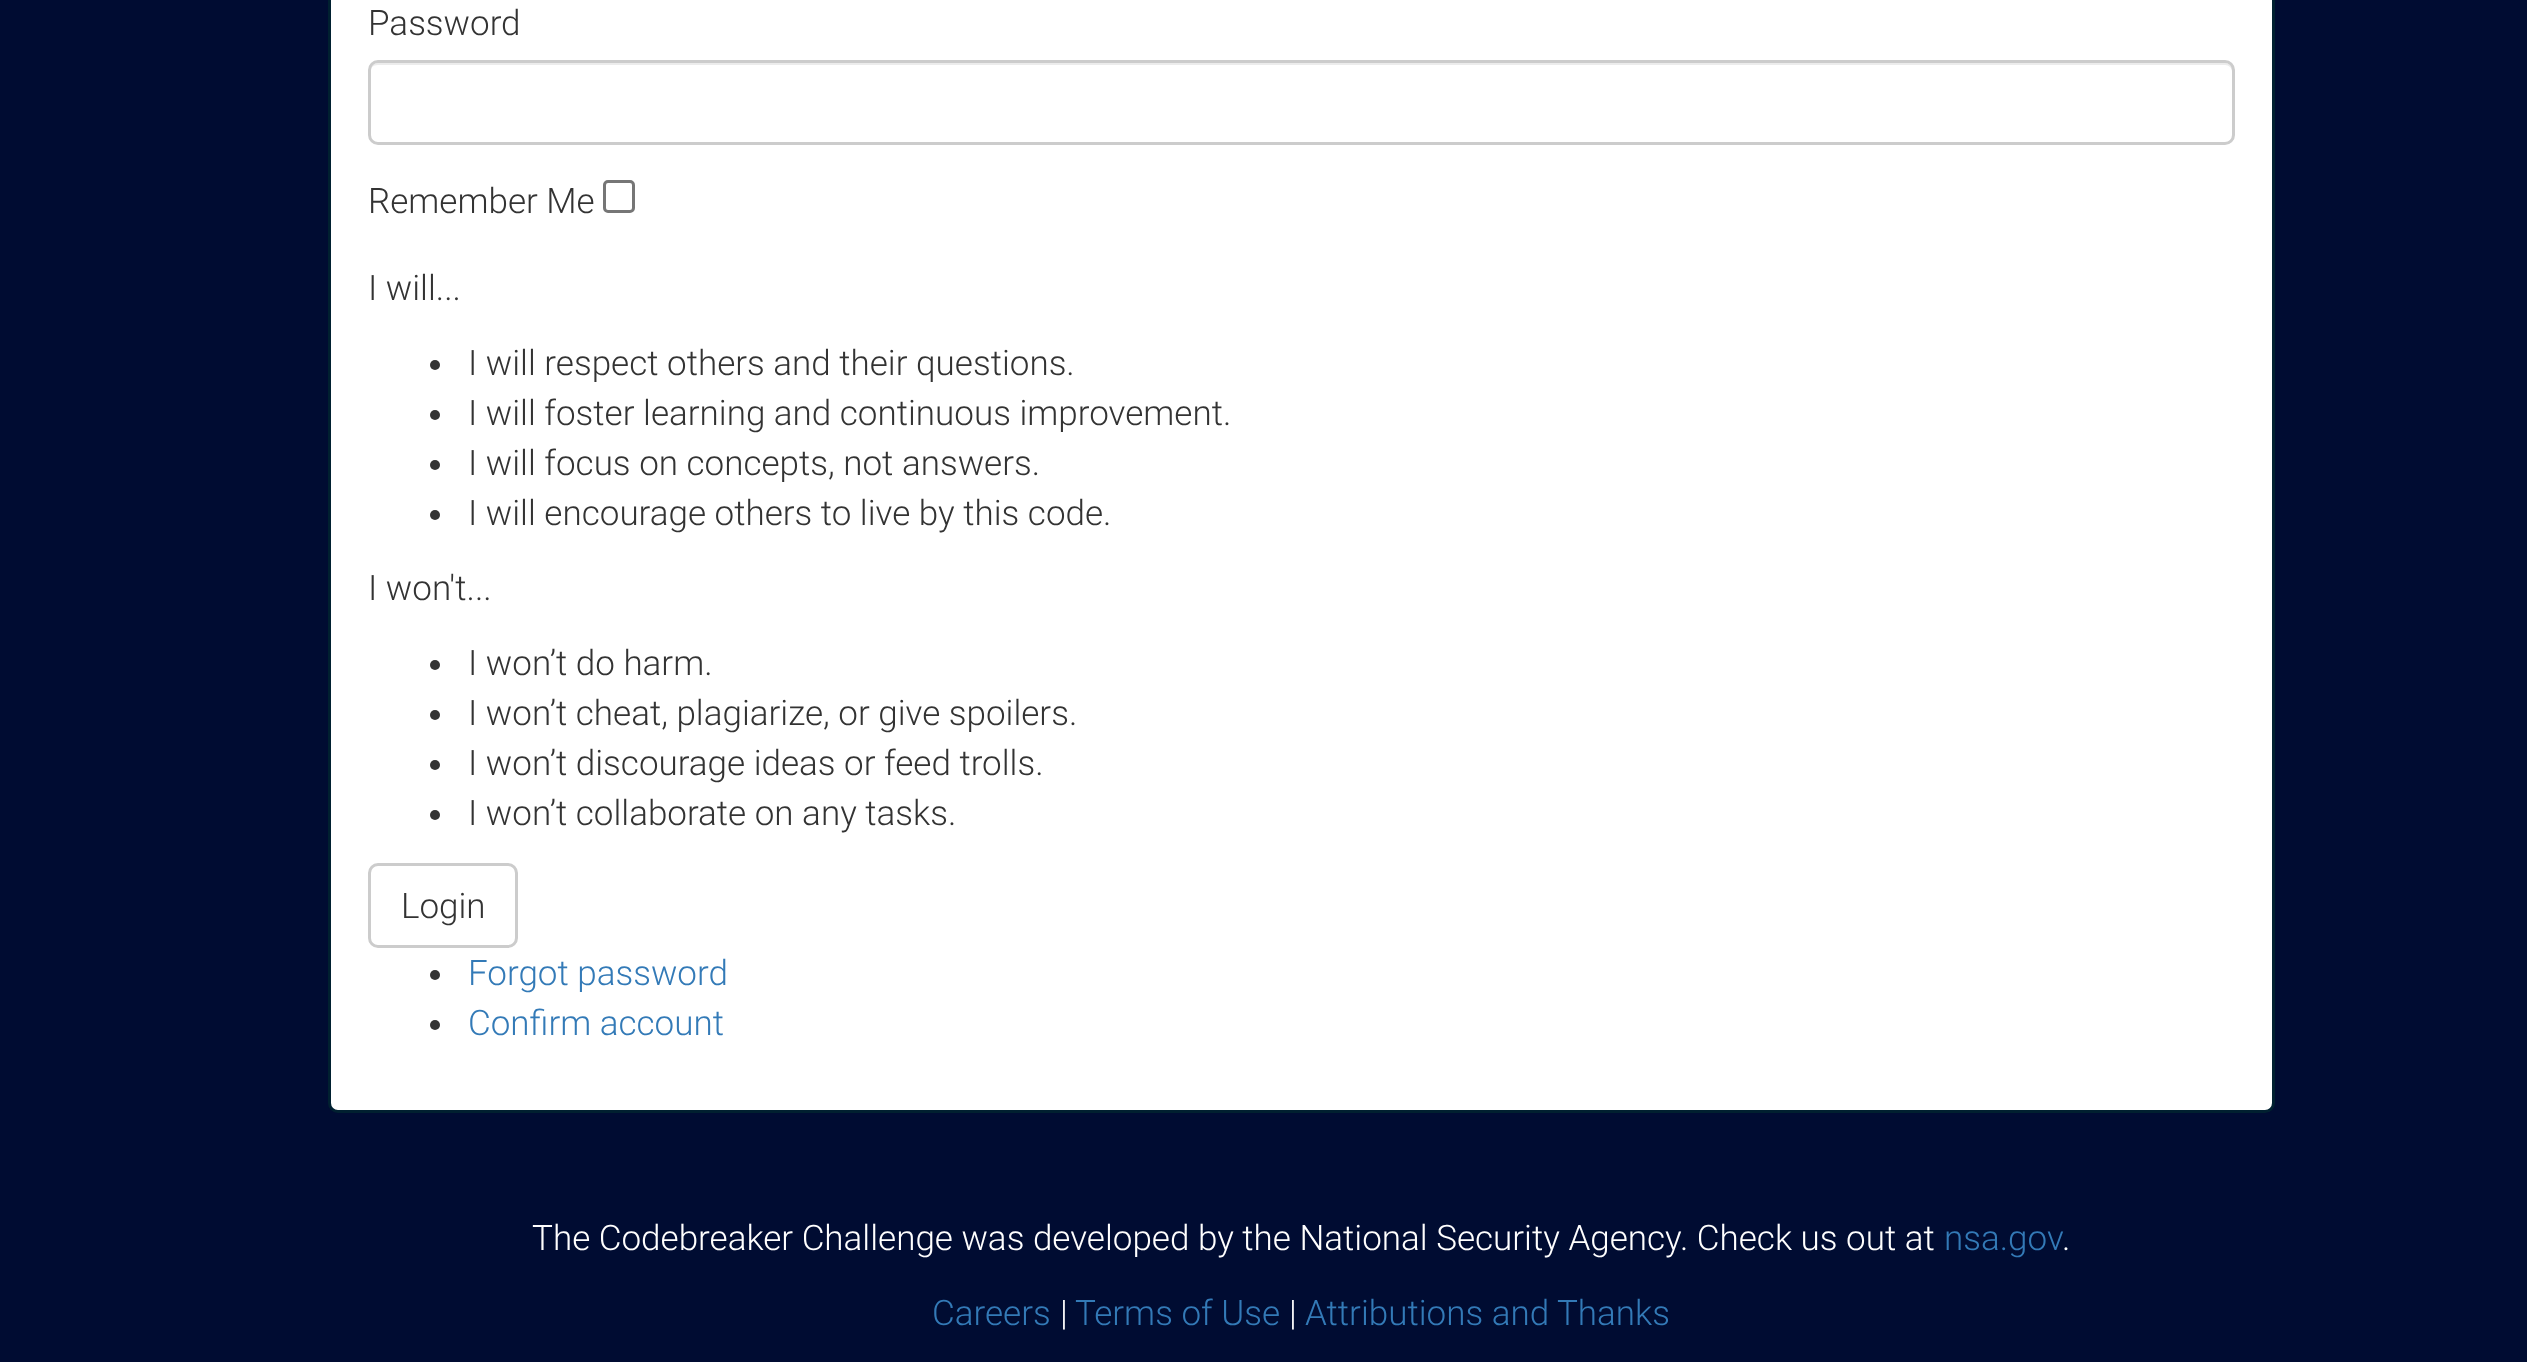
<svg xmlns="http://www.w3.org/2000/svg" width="2527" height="1362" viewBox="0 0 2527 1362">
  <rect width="100%" height="100%" fill="rgb(0,12,50)"/>
  <rect x="329.5" y="-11.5" width="1944" height="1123" rx="8.5" fill="rgb(255,255,255)" stroke="rgb(0,32,48)" stroke-width="3"/>
  <text x="368" y="35" font-family="Roboto" font-size="35" font-weight="300" fill="rgb(51,51,51)">Password</text>
  <path d="M378 65H2225C2229 65 2232 68 2232 72V139C2233 138 2233 136 2233 135V71C2233 67 2229 63 2225 63H378C374 63 370 67 370 71V72C370 68 373 65 378 65Z" fill="rgb(236,236,236)"/>
  <rect x="369.5" y="61.5" width="1864" height="82" rx="8.5" fill="none" stroke="rgb(204,204,204)" stroke-width="3"/>
  <text x="368" y="213" font-family="Roboto" font-size="35" font-weight="300" fill="rgb(51,51,51)">Remember Me</text>
  <rect x="604.5" y="181.5" width="29" height="30" rx="3.5" fill="none" stroke="rgb(118,118,118)" stroke-width="3"/>
  <text x="368" y="300" font-family="Roboto" font-size="35" font-weight="300" fill="rgb(51,51,51)">I will...</text>
  <circle cx="435" cy="365" r="5" fill="rgb(51,51,51)"/>
  <text x="468" y="375" font-family="Roboto" font-size="35" font-weight="300" fill="rgb(51,51,51)">I will respect others and their questions.</text>
  <circle cx="435" cy="415" r="5" fill="rgb(51,51,51)"/>
  <text x="468" y="425" font-family="Roboto" font-size="35" font-weight="300" fill="rgb(51,51,51)">I will foster learning and continuous improvement.</text>
  <circle cx="435" cy="465" r="5" fill="rgb(51,51,51)"/>
  <text x="468" y="475" font-family="Roboto" font-size="35" font-weight="300" fill="rgb(51,51,51)">I will focus on concepts, not answers.</text>
  <circle cx="435" cy="515" r="5" fill="rgb(51,51,51)"/>
  <g font-family="Roboto" font-size="35" font-weight="300" fill="rgb(51,51,51)">
    <text x="468" y="525">I will encourage others to live by this code.</text>
    <text x="368" y="600">I won't...</text>
  </g>
  <circle cx="435" cy="665" r="5" fill="rgb(51,51,51)"/>
  <text x="468" y="675" font-family="Roboto" font-size="35" font-weight="300" fill="rgb(51,51,51)">I won’t do harm.</text>
  <circle cx="435" cy="715" r="5" fill="rgb(51,51,51)"/>
  <text x="468" y="725" font-family="Roboto" font-size="35" font-weight="300" fill="rgb(51,51,51)">I won’t cheat, plagiarize, or give spoilers.</text>
  <circle cx="435" cy="765" r="5" fill="rgb(51,51,51)"/>
  <text x="468" y="775" font-family="Roboto" font-size="35" font-weight="300" fill="rgb(51,51,51)">I won’t discourage ideas or feed trolls.</text>
  <circle cx="435" cy="815" r="5" fill="rgb(51,51,51)"/>
  <text x="468" y="825" font-family="Roboto" font-size="35" font-weight="300" fill="rgb(51,51,51)">I won’t collaborate on any tasks.</text>
  <rect x="369.5" y="864.5" width="147" height="82" rx="8.5" fill="none" stroke="rgb(204,204,204)" stroke-width="3"/>
  <text x="401" y="918" font-family="Roboto" font-size="35" font-weight="300" fill="rgb(51,51,51)">Login</text>
  <circle cx="435" cy="975" r="5" fill="rgb(51,51,51)"/>
  <text x="468" y="985" font-family="Roboto" font-size="35" font-weight="300" fill="rgb(51,122,183)">Forgot password</text>
  <circle cx="435" cy="1025" r="5" fill="rgb(51,51,51)"/>
  <text x="468" y="1035" font-family="Roboto" font-size="35" font-weight="300" fill="rgb(51,122,183)">Confirm account</text>
  <text x="532" y="1250" font-family="Roboto" font-size="35" font-weight="300" fill="rgb(255,255,255)">The Codebreaker Challenge was developed by the National Security Agency. Check us out at</text>
  <text x="1944" y="1250" font-family="Roboto" font-size="35" font-weight="300" fill="rgb(51,122,183)">nsa.gov</text>
  <text x="2062" y="1250" font-family="Roboto" font-size="35" font-weight="300" fill="rgb(255,255,255)">.</text>
  <text x="932" y="1325" font-family="Roboto" font-size="35" font-weight="300" fill="rgb(51,122,183)">Careers</text>
  <text x="1060" y="1325" font-family="Roboto" font-size="35" font-weight="300" fill="rgb(255,255,255)">|</text>
  <text x="1075" y="1325" font-family="Roboto" font-size="35" font-weight="300" fill="rgb(51,122,183)">Terms of Use</text>
  <text x="1289" y="1325" font-family="Roboto" font-size="35" font-weight="300" fill="rgb(255,255,255)">|</text>
  <text x="1305" y="1325" font-family="Roboto" font-size="35" font-weight="300" fill="rgb(51,122,183)">Attributions and Thanks</text>
</svg>
